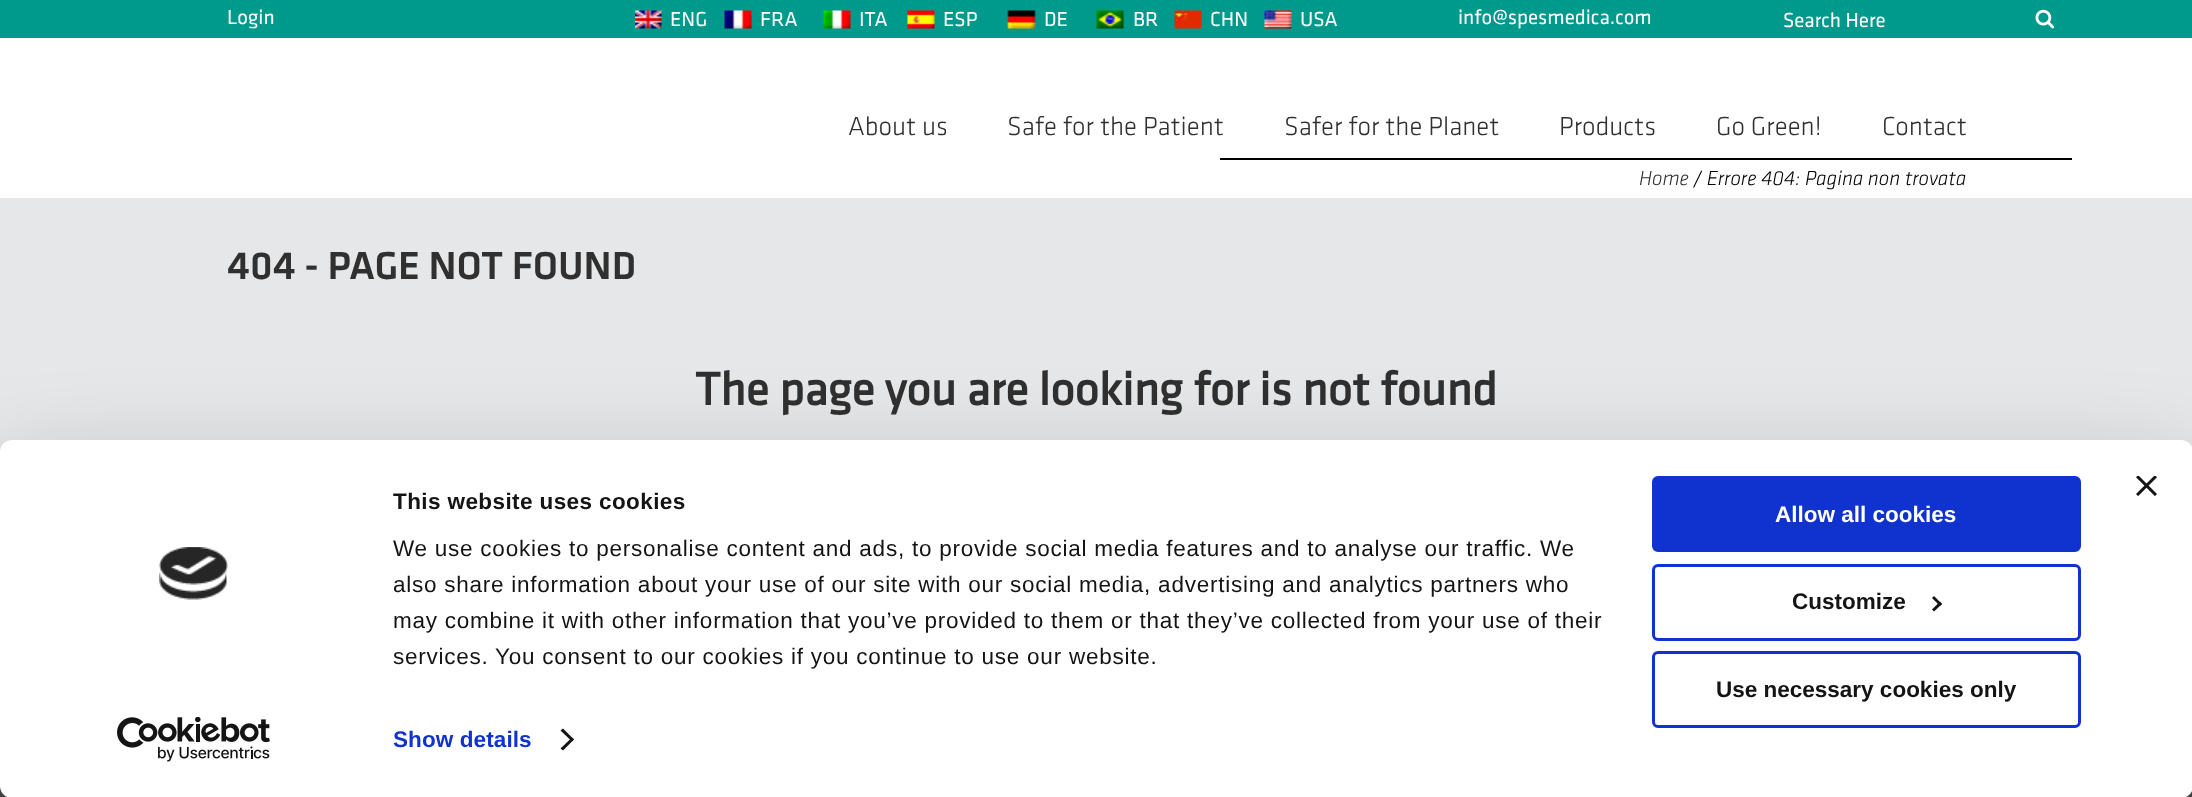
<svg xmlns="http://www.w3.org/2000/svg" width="2192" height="797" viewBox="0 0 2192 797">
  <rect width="100%" height="100%" fill="rgb(73,73,73)"/>
  <rect x="0" y="0" width="2192" height="38" fill="rgb(0,154,140)"/>
  <text x="227" y="24" font-family="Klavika" font-size="21" fill="rgb(255,255,255)">Login</text>
  <image x="635" y="10" width="27" height="19" href="pic1.png"/>
  <text x="670" y="26" font-family="Klavika" font-size="21" fill="rgb(255,255,255)">ENG</text>
  <image x="724" y="10" width="28" height="19" href="pic2.png"/>
  <text x="760" y="26" font-family="Klavika" font-size="21" fill="rgb(255,255,255)">FRA</text>
  <image x="823" y="10" width="28" height="19" href="pic3.png"/>
  <text x="859" y="26" font-family="Klavika" font-size="21" fill="rgb(255,255,255)">ITA</text>
  <image x="907" y="10" width="28" height="19" href="pic4.png"/>
  <text x="943" y="26" font-family="Klavika" font-size="21" fill="rgb(255,255,255)">ESP</text>
  <image x="1007" y="10" width="29" height="19" href="pic5.png"/>
  <text x="1044" y="26" font-family="Klavika" font-size="21" fill="rgb(255,255,255)">DE</text>
  <image x="1096" y="10" width="28" height="19" href="pic6.png"/>
  <text x="1133" y="26" font-family="Klavika" font-size="21" fill="rgb(255,255,255)">BR</text>
  <image x="1174" y="10" width="28" height="19" href="pic7.png"/>
  <text x="1210" y="26" font-family="Klavika" font-size="21" fill="rgb(255,255,255)">CHN</text>
  <image x="1264" y="10" width="28" height="19" href="pic8.png"/>
  <g font-family="Klavika" font-size="21" fill="rgb(255,255,255)">
    <text x="1300" y="26">USA</text>
    <text x="1458" y="24">info@spesmedica.com</text>
    <text x="1783" y="27">Search Here</text>
  </g>
  <image x="2035" y="9" width="19" height="20" href="pic9.png"/>
  <rect x="0" y="38" width="2192" height="160" fill="rgb(255,255,255)"/>
  <g font-family="'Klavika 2'" font-size="27" font-weight="300" fill="rgb(48,48,48)">
    <text x="848" y="135">About us</text>
    <text x="1007" y="135">Safe for the Patient</text>
    <text x="1284" y="135">Safer for the Planet</text>
    <text x="1559" y="135">Products</text>
    <text x="1716" y="135">Go Green!</text>
    <text x="1882" y="135">Contact</text>
  </g>
  <rect x="1220" y="158" width="852" height="2" fill="rgb(0,0,0)"/>
  <text x="1639" y="185" font-family="Klavika" font-size="21" font-weight="300" fill="rgb(48,48,48)">Home</text>
  <text x="1693" y="185" font-family="Klavika" font-size="21" font-weight="300" fill="rgb(0,0,0)">/ Errore 404: Pagina non trovata</text>
  <rect x="0" y="198" width="2192" height="254" fill="rgb(230,231,232)"/>
  <text x="227" y="279" font-family="Klavika" font-size="40.5" font-weight="500" fill="rgb(48,48,48)">404 - PAGE NOT FOUND</text>
  <text x="695" y="405" font-family="Klavika" font-size="48" font-weight="bold" fill="rgb(48,48,48)">The page you are looking for is not found</text>
  <rect x="0" y="485" width="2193" height="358" rx="12" fill="rgba(0,0,0,0.3)" filter="blur(52.5px)"/>
  <rect x="0" y="440" width="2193" height="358" rx="12" fill="rgb(255,255,255)"/>
  <image x="2136" y="476" width="21" height="20" href="pic10.png"/>
  <image x="159" y="547" width="69" height="53" href="pic11.png"/>
  <image x="117" y="717" width="153" height="45" href="pic12.png"/>
  <text x="393" y="509" font-family="Liberation Sans" font-size="22.5" font-weight="bold" letter-spacing="0.4" fill="rgb(20,20,20)">This website uses cookies</text>
  <g font-family="Liberation Sans" font-size="22.5" letter-spacing="0.75" fill="rgb(20,20,20)">
    <text>
      <tspan x="393" y="556">We use cookies to personalise content and ads, to provide social media features and to analyse our traffic. We</tspan>
      <tspan x="393" y="592">also share information about your use of our site with our social media, advertising and analytics partners who</tspan>
      <tspan x="393" y="628">may combine it with other information that you’ve provided to them or that they’ve collected from your use of their</tspan>
      <tspan x="393" y="664">services. You consent to our cookies if you continue to use our website.</tspan>
    </text>
  </g>
  <text x="393" y="747" font-family="Liberation Sans" font-size="22.5" font-weight="bold" letter-spacing="0.1" fill="rgb(16,50,207)">Show details</text>
  <path d="M563 728.5L574 739.5L572 741.5L560.5 730.5Z" fill="rgb(20,20,20)"/>
  <path d="M572 737.5L574 739.5L563 750.5L560.5 748.5Z" fill="rgb(20,20,20)"/>
  <rect x="1653.5" y="477.5" width="426" height="73" rx="4.5" fill="rgb(16,50,207)" stroke="rgb(16,50,207)" stroke-width="3"/>
  <text x="1775" y="522" font-family="Liberation Sans" font-size="22.5" font-weight="bold" fill="rgb(255,255,255)">Allow all cookies</text>
  <rect x="1653.5" y="565.5" width="426" height="74" rx="4.5" fill="none" stroke="rgb(16,50,207)" stroke-width="3"/>
  <text x="1792" y="609" font-family="Liberation Sans" font-size="22.5" font-weight="bold" fill="rgb(20,20,20)">Customize</text>
  <path d="M1934 596L1942 604L1940 606L1932 598Z" fill="rgb(20,20,20)"/>
  <path d="M1940 601.5L1942 604L1934 611.5L1932 609.5Z" fill="rgb(20,20,20)"/>
  <rect x="1653.5" y="652.5" width="426" height="74" rx="4.5" fill="none" stroke="rgb(16,50,207)" stroke-width="3"/>
  <text x="1716" y="697" font-family="Liberation Sans" font-size="22.5" font-weight="bold" fill="rgb(20,20,20)">Use necessary cookies only</text>
</svg>
